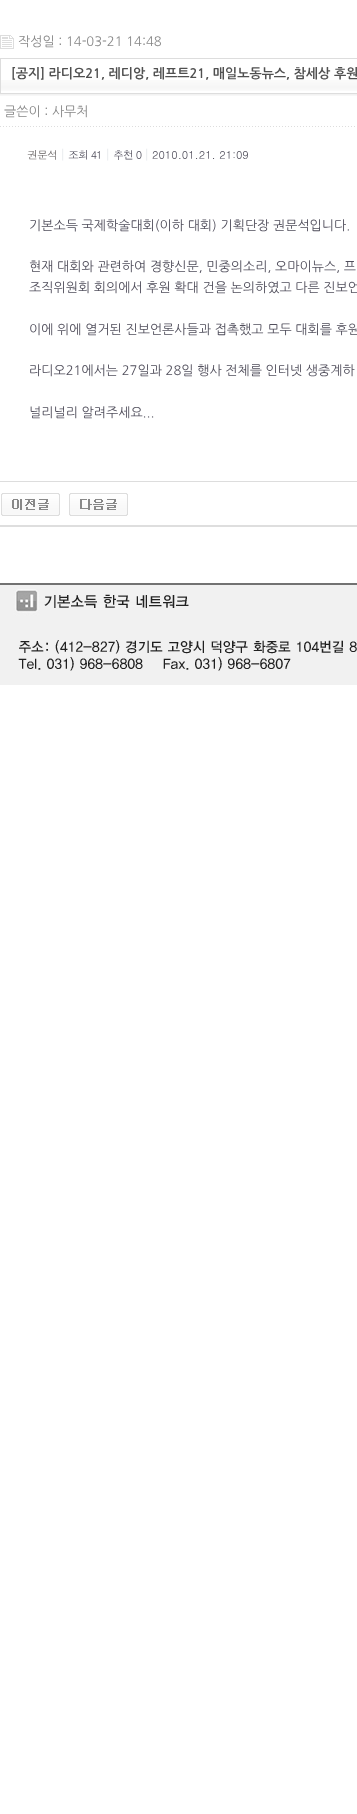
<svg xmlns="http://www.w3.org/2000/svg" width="357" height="1814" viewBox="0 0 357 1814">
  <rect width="100%" height="100%" fill="rgb(255,255,255)"/>
  <image x="0" y="35" width="14" height="14" href="pic1.png"/>
  <text x="18" y="46" font-family="NanumGothic" font-size="13" fill="rgb(136,136,136)">작성일 : 14-03-21 14:48</text>
  <image x="1" y="80" width="356" height="11" href="pic2.png"/>
  <rect x="0.5" y="58.5" width="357" height="35" fill="none" stroke="rgb(221,221,221)"/>
  <text x="11" y="78" font-family="NanumGothic" font-size="13" font-weight="bold" fill="rgb(80,80,80)">[공지] 라디오21, 레디앙, 레프트21, 매일노동뉴스, 참세상 후원</text>
  <image x="0" y="94" width="357" height="2" href="pic3.png"/>
  <image x="0" y="126" width="355" height="1" href="pic4.png"/>
  <text x="4" y="116" font-family="NanumGothic" font-size="13" fill="rgb(136,136,136)">글쓴이 : 사무처</text>
  <text x="27" y="159" font-family="Dotum" font-size="11" letter-spacing="-1" fill="rgb(103,99,99)">권문석</text>
  <text x="61" y="159" font-family="NanumGothic" font-size="13" fill="rgb(234,236,239)">|</text>
  <text x="68" y="159" font-family="Dotum" font-size="11" letter-spacing="-1" fill="rgb(81,79,92)">조회 41</text>
  <text x="106" y="159" font-family="NanumGothic" font-size="13" fill="rgb(234,236,239)">|</text>
  <text x="113" y="159" font-family="Dotum" font-size="11" letter-spacing="-1" fill="rgb(81,79,92)">추천 0</text>
  <text x="145" y="159" font-family="NanumGothic" font-size="13" fill="rgb(234,236,239)">|</text>
  <text x="152" y="159" font-family="Dotum" font-size="11" fill="rgb(81,79,92)">2010.01.21. 21:09</text>
  <g font-family="NanumGothic" font-size="13" fill="rgb(81,79,92)">
    <text x="29" y="230">기본소득 국제학술대회(이하 대회) 기획단장 권문석입니다.</text>
    <text>
      <tspan x="29" y="271">현재 대회와 관련하여 경향신문, 민중의소리, 오마이뉴스, 프</tspan>
      <tspan x="29" y="292">조직위원회 회의에서 후원 확대 건을 논의하였고 다른 진보언</tspan>
    </text>
    <text x="29" y="334">이에 위에 열거된 진보언론사들과 접촉했고 모두 대회를 후원</text>
    <text x="29" y="375">라디오21에서는 27일과 28일 행사 전체를 인터넷 생중계하</text>
    <text x="29" y="417">널리널리 알려주세요...</text>
  </g>
  <rect x="0" y="481" width="357" height="1" fill="rgb(221,221,221)"/>
  <image x="1" y="493" width="59" height="23" href="pic5.png"/>
  <image x="69" y="493" width="59" height="23" href="pic6.png"/>
  <rect x="0" y="525" width="357" height="2" fill="rgb(222,222,222)"/>
  <rect x="0" y="583" width="357" height="2" fill="rgb(114,114,114)"/>
  <image x="0" y="585" width="357" height="100" href="pic7.png"/>
</svg>
